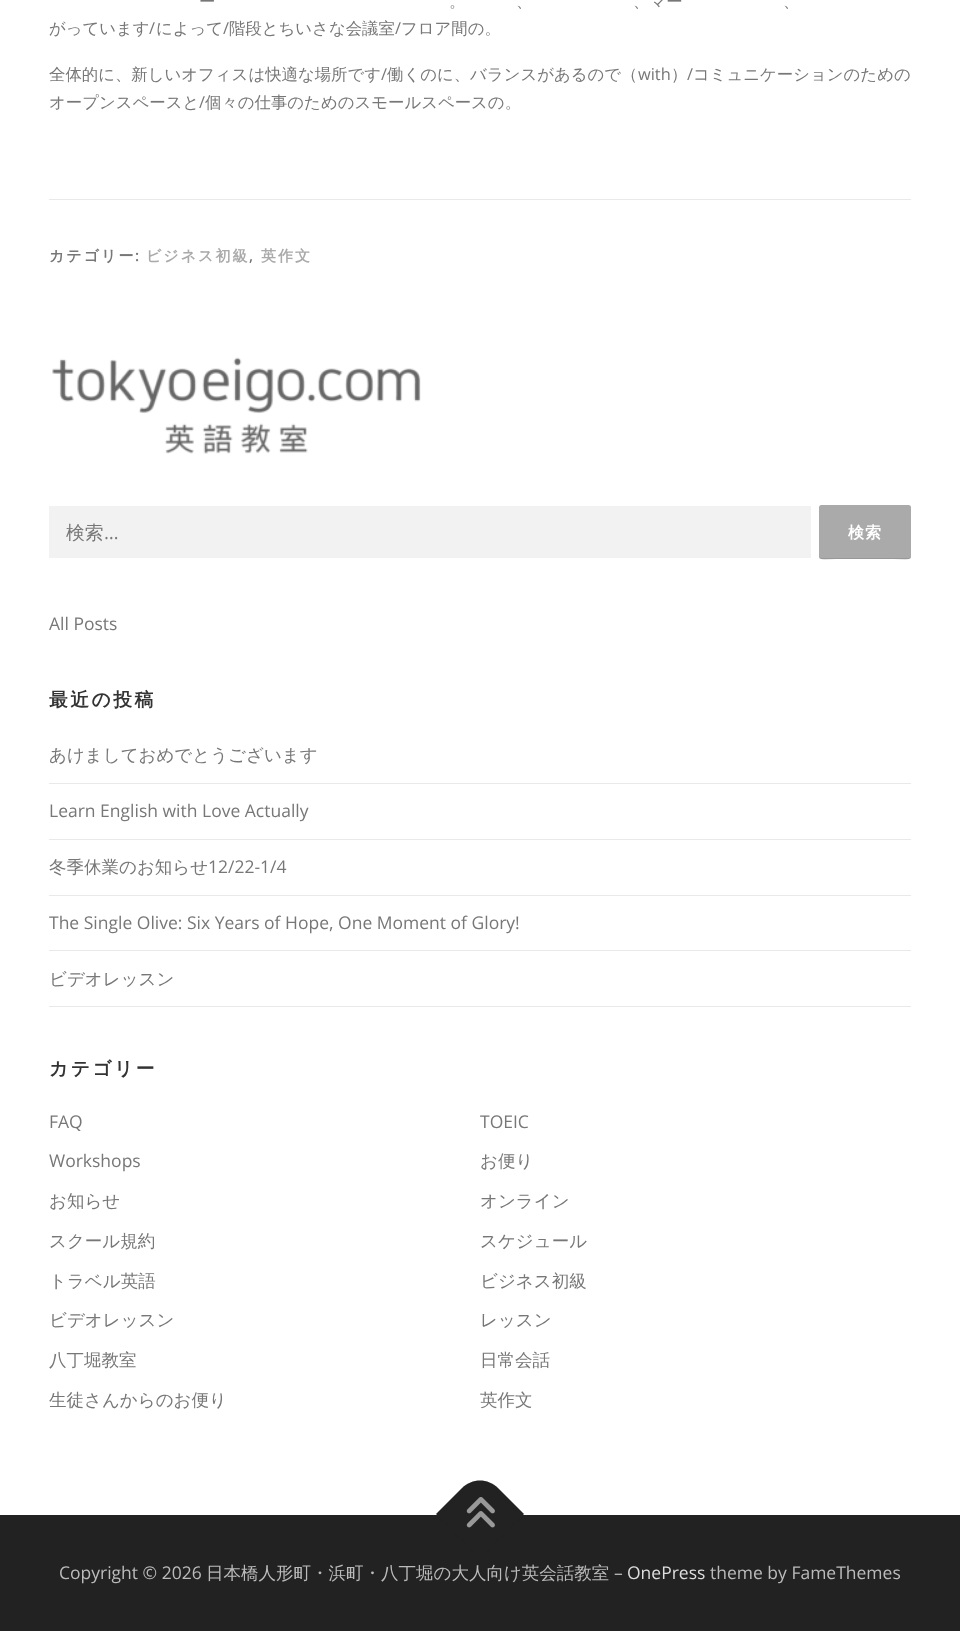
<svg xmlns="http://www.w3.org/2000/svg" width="960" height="1631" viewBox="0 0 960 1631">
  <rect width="100%" height="100%" fill="rgb(255,255,255)"/>
  <g font-family="WenQuanYi Zen Hei" font-size="16.4" font-weight="500" fill="rgb(119,119,119)">
    <text x="199" y="7">ー</text>
    <text x="449" y="7">。</text>
    <text x="516" y="7">、</text>
    <text x="633" y="7">、マー</text>
    <text x="783" y="7">、</text>
    <text x="49" y="34">がっています</text>
  </g>
  <text x="149" y="34" font-family="Open Sans" font-size="16.4" fill="rgb(119,119,119)">/</text>
  <text x="156" y="34" font-family="WenQuanYi Zen Hei" font-size="16.4" font-weight="500" fill="rgb(119,119,119)">によって</text>
  <text x="223" y="34" font-family="Open Sans" font-size="16.4" fill="rgb(119,119,119)">/</text>
  <text x="229" y="34" font-family="WenQuanYi Zen Hei" font-size="16.4" font-weight="500" fill="rgb(119,119,119)">階段とちいさな会議室</text>
  <text x="395" y="34" font-family="Open Sans" font-size="16.4" fill="rgb(119,119,119)">/</text>
  <g font-family="WenQuanYi Zen Hei" font-size="16.4" font-weight="500" fill="rgb(119,119,119)">
    <text x="401" y="34">フロア間の。</text>
    <text x="49" y="80">全体的に、新しいオフィスは快適な場所です</text>
  </g>
  <text x="381" y="80" font-family="Open Sans" font-size="16.4" fill="rgb(119,119,119)">/</text>
  <text x="387" y="80" font-family="WenQuanYi Zen Hei" font-size="16.4" font-weight="500" fill="rgb(119,119,119)">働くのに、バランスがあるので（</text>
  <text x="638" y="80" font-family="Open Sans" font-size="16.4" fill="rgb(119,119,119)">with</text>
  <text x="671" y="80" font-family="WenQuanYi Zen Hei" font-size="16.4" font-weight="500" fill="rgb(119,119,119)">）</text>
  <text x="687" y="80" font-family="Open Sans" font-size="16.4" fill="rgb(119,119,119)">/</text>
  <g font-family="WenQuanYi Zen Hei" font-size="16.4" font-weight="500" fill="rgb(119,119,119)">
    <text x="693" y="80">コミュニケーションのための</text>
    <text x="49" y="108">オープンスペースと</text>
  </g>
  <text x="199" y="108" font-family="Open Sans" font-size="16.4" fill="rgb(119,119,119)">/</text>
  <text x="205" y="108" font-family="WenQuanYi Zen Hei" font-size="16.4" font-weight="500" fill="rgb(119,119,119)">個々の仕事のためのスモールスペースの。</text>
  <rect x="49" y="199" width="862" height="1" fill="rgb(233,233,233)"/>
  <text x="49" y="261" font-family="WenQuanYi Zen Hei" font-size="15" font-weight="bold" letter-spacing="2" fill="rgb(119,119,119)">カテゴリー</text>
  <text x="135" y="261" font-family="Open Sans" font-size="15" font-weight="600" letter-spacing="2" fill="rgb(119,119,119)">:</text>
  <text x="146" y="261" font-family="WenQuanYi Zen Hei" font-size="15" font-weight="bold" letter-spacing="2" fill="rgb(170,170,170)">ビジネス初級</text>
  <text x="249" y="261" font-family="Open Sans" font-size="15" font-weight="600" letter-spacing="2" fill="rgb(119,119,119)">,</text>
  <text x="261" y="261" font-family="WenQuanYi Zen Hei" font-size="15" font-weight="bold" letter-spacing="2" fill="rgb(170,170,170)">英作文</text>
  <image x="52" y="357" width="369" height="97" href="pic1.png"/>
  <rect x="49" y="506" width="762" height="52" fill="rgb(242,242,242)"/>
  <text x="66" y="539" font-family="WenQuanYi Zen Hei" font-size="18.75" font-weight="500" fill="rgb(119,119,119)">検索</text>
  <text x="104" y="539" font-family="Open Sans" font-size="18.75" fill="rgb(119,119,119)">…</text>
  <rect x="819" y="505" width="92" height="54" rx="2.5" fill="rgb(170,170,170)"/>
  <path d="M819 555C819 563 831 559 836 559H894C899 559 911 563 911 555C911 556 910 558 909 558H821C820 558 819 556 819 555Z" fill="rgba(0,0,0,0.1)"/>
  <text x="848" y="538" font-family="WenQuanYi Zen Hei" font-size="16" font-weight="bold" letter-spacing="1" fill="rgb(255,255,255)">検索</text>
  <text x="49" y="630" font-family="Open Sans" font-size="17.5" fill="rgb(119,119,119)">All Posts</text>
  <text x="49" y="706" font-family="WenQuanYi Zen Hei" font-size="18.75" font-weight="bold" letter-spacing="2.5" fill="rgb(51,51,51)">最近の投稿</text>
  <rect x="49" y="783" width="862" height="1" fill="rgb(233,233,233)"/>
  <text x="49" y="761" font-family="WenQuanYi Zen Hei" font-size="17.5" font-weight="500" fill="rgb(119,119,119)">あけましておめでとうございます</text>
  <rect x="49" y="839" width="862" height="1" fill="rgb(233,233,233)"/>
  <text x="49" y="817" font-family="Open Sans" font-size="17.5" fill="rgb(119,119,119)">Learn English with Love Actually</text>
  <rect x="49" y="895" width="862" height="1" fill="rgb(233,233,233)"/>
  <text x="49" y="873" font-family="WenQuanYi Zen Hei" font-size="17.5" font-weight="500" fill="rgb(119,119,119)">冬季休業のお知らせ</text>
  <text x="208" y="873" font-family="Open Sans" font-size="17.5" fill="rgb(119,119,119)">12/22-1/4</text>
  <rect x="49" y="950" width="862" height="1" fill="rgb(233,233,233)"/>
  <text x="49" y="929" font-family="Open Sans" font-size="17.5" fill="rgb(119,119,119)">The Single Olive: Six Years of Hope, One Moment of Glory!</text>
  <rect x="49" y="1006" width="862" height="1" fill="rgb(233,233,233)"/>
  <text x="49" y="985" font-family="WenQuanYi Zen Hei" font-size="17.5" font-weight="500" fill="rgb(119,119,119)">ビデオレッスン</text>
  <text x="49" y="1075" font-family="WenQuanYi Zen Hei" font-size="18.75" font-weight="bold" letter-spacing="2.5" fill="rgb(51,51,51)">カテゴリー</text>
  <g font-family="Open Sans" font-size="17.5" fill="rgb(119,119,119)">
    <text x="49" y="1128">FAQ</text>
    <text x="480" y="1128">TOEIC</text>
    <text x="49" y="1167">Workshops</text>
  </g>
  <g font-family="WenQuanYi Zen Hei" font-size="17.5" font-weight="500" fill="rgb(119,119,119)">
    <text x="480" y="1167">お便り</text>
    <text x="49" y="1207">お知らせ</text>
    <text x="480" y="1207">オンライン</text>
    <text x="49" y="1247">スクール規約</text>
    <text x="480" y="1247">スケジュール</text>
    <text x="49" y="1287">トラベル英語</text>
    <text x="480" y="1287">ビジネス初級</text>
    <text x="49" y="1326">ビデオレッスン</text>
    <text x="480" y="1326">レッスン</text>
    <text x="49" y="1366">八丁堀教室</text>
    <text x="480" y="1366">日常会話</text>
    <text x="49" y="1406">生徒さんからのお便り</text>
    <text x="480" y="1406">英作文</text>
  </g>
  <rect x="0" y="1515" width="960" height="116" fill="rgb(34,34,34)"/>
  <path d="M436 1514L462 1488C472 1478 488 1478 498 1488L524 1514L480 1559Z" fill="rgb(34,34,34)"/>
  <image x="466" y="1497" width="29" height="31" href="pic2.png"/>
  <text x="59" y="1579" font-family="Open Sans" font-size="17.5" fill="rgb(187,187,187)">Copyright © 2026</text>
  <text x="206" y="1579" font-family="WenQuanYi Zen Hei" font-size="17.5" font-weight="500" fill="rgb(187,187,187)">日本橋人形町・浜町・八丁堀の大人向け英会話教室</text>
  <text x="614" y="1579" font-family="Open Sans" font-size="17.5" fill="rgb(187,187,187)">–</text>
  <text x="627" y="1579" font-family="Open Sans" font-size="17.5" fill="rgb(221,221,221)">OnePress</text>
  <text x="710" y="1579" font-family="Open Sans" font-size="17.5" fill="rgb(187,187,187)">theme by FameThemes</text>
</svg>
